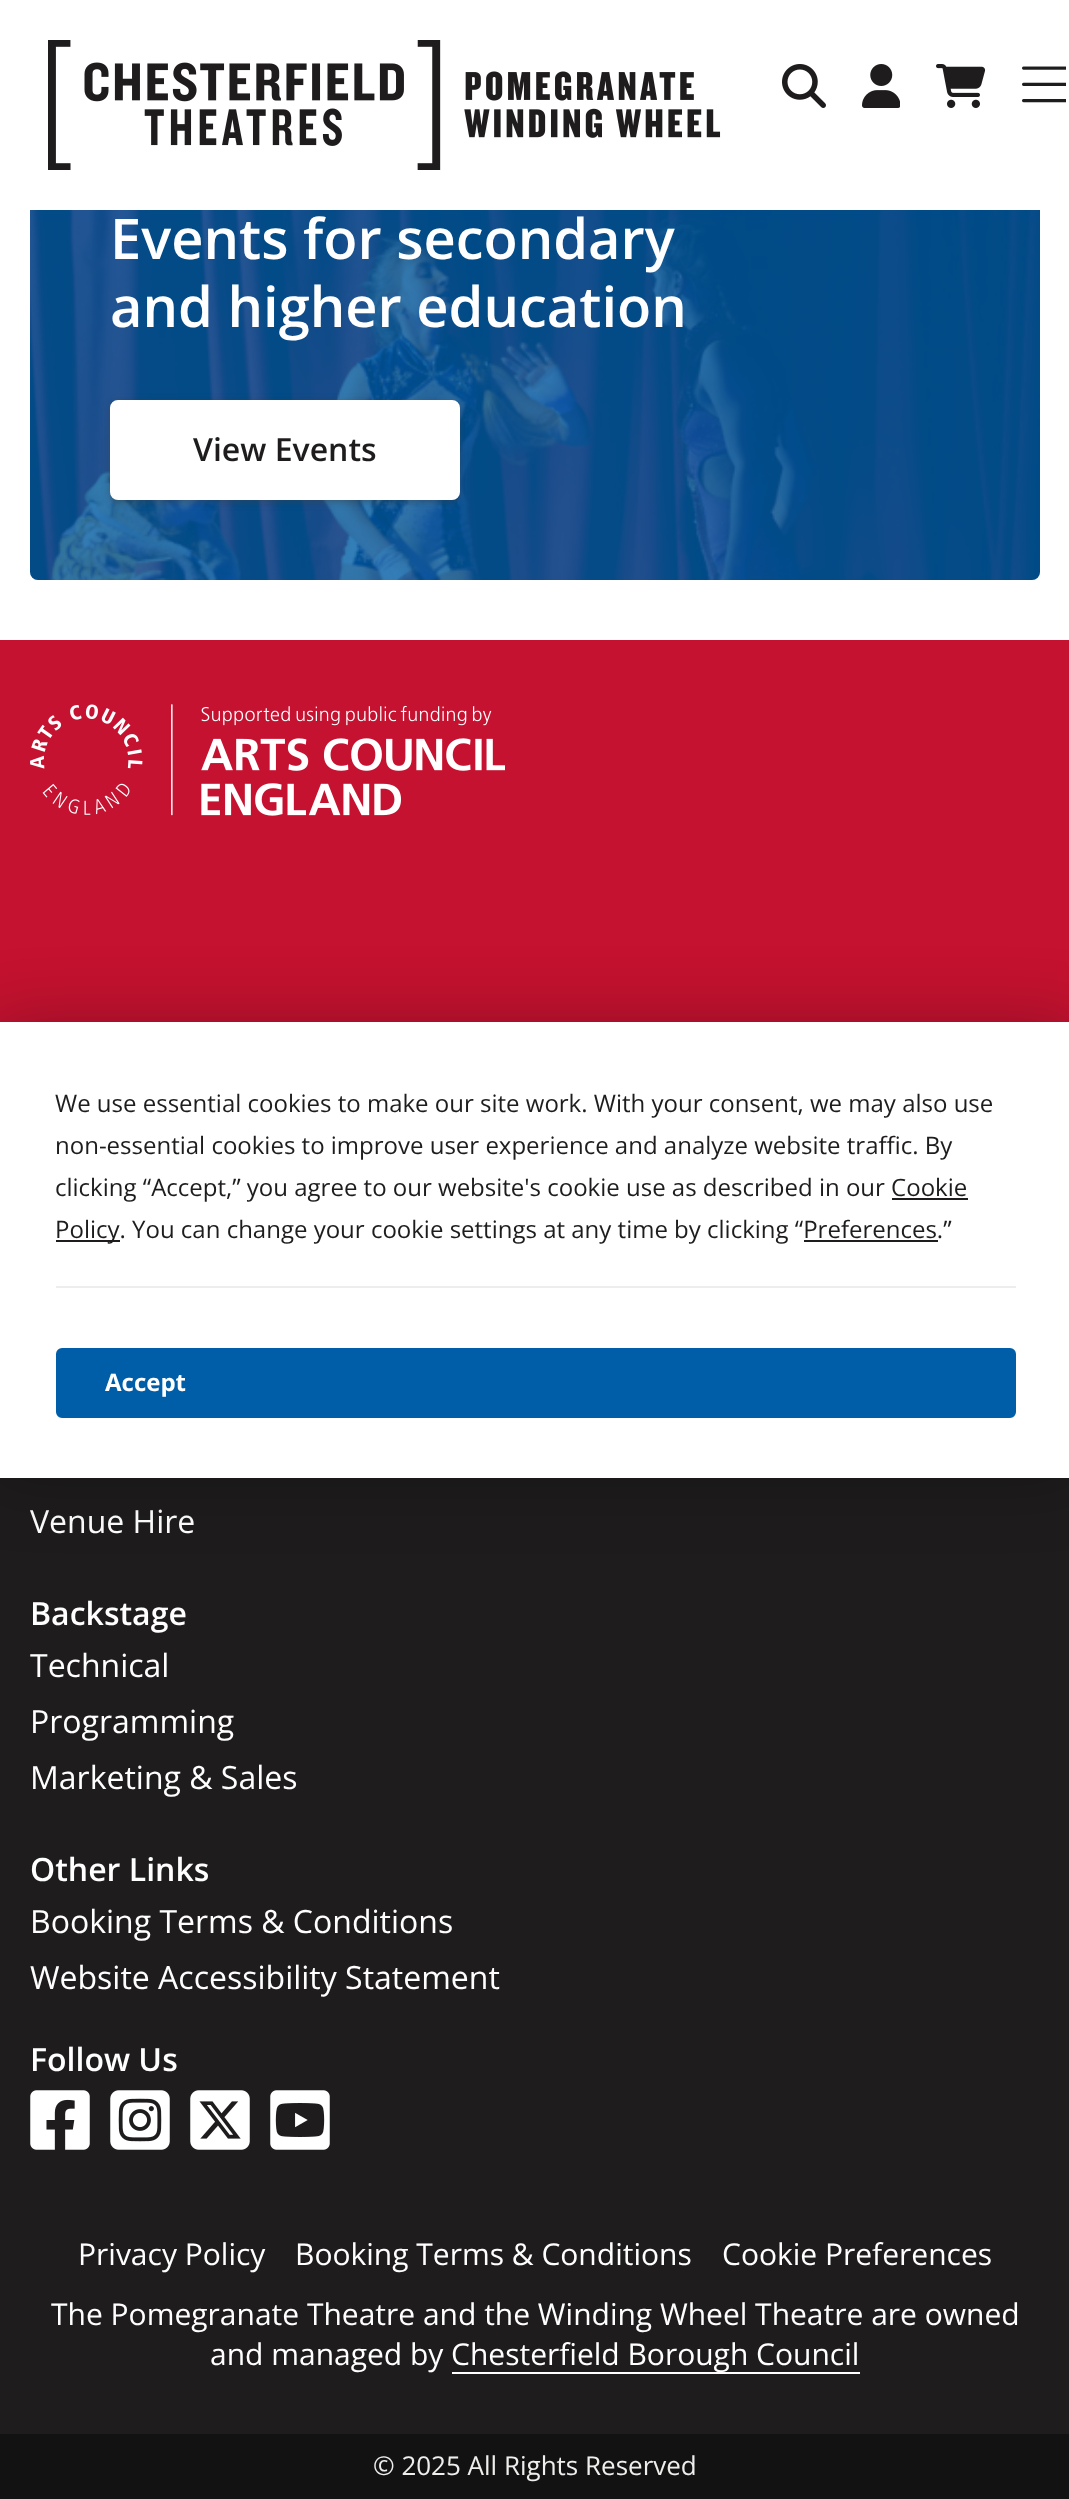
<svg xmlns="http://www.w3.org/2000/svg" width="1069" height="2499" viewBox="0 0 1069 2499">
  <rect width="100%" height="100%" fill="rgb(255,255,255)"/>
  <rect x="30" y="124" width="1010" height="456" rx="8" fill="rgb(0,94,169)"/>
  <rect x="30" y="124" width="1010" height="86" fill="rgb(255,255,255)"/>
  <image x="48" y="40" width="673" height="130" href="pic1.png"/>
  <image x="782" y="64" width="44" height="44" href="pic2.png"/>
  <image x="862" y="64" width="38" height="44" href="pic3.png"/>
  <image x="936" y="64" width="50" height="44" href="pic4.png"/>
  <image x="1022" y="66" width="44" height="37" href="pic5.png"/>
  <image x="30" y="210" width="1010" height="370" href="pic6.png"/>
  <g font-family="Open Sans" font-size="56" font-weight="600" fill="rgb(255,255,255)">
    <text>
      <tspan x="110" y="259">Events for secondary</tspan>
      <tspan x="110" y="327">and higher education</tspan>
    </text>
  </g>
  <rect x="108" y="400" width="354" height="104" rx="10" fill="rgba(60,64,67,0.15)" filter="blur(3px)"/>
  <rect x="110" y="402" width="350" height="100" rx="8" fill="rgba(60,64,67,0.3)" filter="blur(2px)"/>
  <rect x="112" y="402" width="346" height="96" rx="6" fill="rgb(255,255,255)" stroke="rgb(255,255,255)" stroke-width="4"/>
  <text x="193" y="461" font-family="Open Sans" font-size="32" font-weight="600" fill="rgb(30,28,28)">View Events</text>
  <rect x="0" y="640" width="1069" height="382" fill="rgb(196,18,48)"/>
  <image x="30" y="704" width="475" height="112" href="pic7.png"/>
  <rect x="0" y="1478" width="1069" height="956" fill="rgb(30,28,28)"/>
  <text x="30" y="1533" font-family="Open Sans" font-size="32" fill="rgb(255,255,255)">Venue Hire</text>
  <text x="30" y="1625" font-family="Open Sans" font-size="32" font-weight="600" fill="rgb(255,255,255)">Backstage</text>
  <g font-family="Open Sans" font-size="32" fill="rgb(255,255,255)">
    <text>
      <tspan x="30" y="1677">Technical</tspan>
      <tspan x="30" y="1733">Programming</tspan>
      <tspan x="30" y="1789">Marketing &amp; Sales</tspan>
    </text>
  </g>
  <text x="30" y="1881" font-family="Open Sans" font-size="32" font-weight="600" fill="rgb(255,255,255)">Other Links</text>
  <g font-family="Open Sans" font-size="32" fill="rgb(255,255,255)">
    <text>
      <tspan x="30" y="1933">Booking Terms &amp; Conditions</tspan>
      <tspan x="30" y="1989">Website Accessibility Statement</tspan>
    </text>
  </g>
  <text x="30" y="2071" font-family="Open Sans" font-size="32" font-weight="600" fill="rgb(255,255,255)">Follow Us</text>
  <image x="30" y="2090" width="60" height="60" href="pic8.png"/>
  <image x="110" y="2090" width="60" height="60" href="pic9.png"/>
  <image x="190" y="2090" width="60" height="60" href="pic10.png"/>
  <image x="270" y="2090" width="60" height="60" href="pic11.png"/>
  <g font-family="Open Sans" font-size="30" fill="rgb(255,255,255)">
    <text x="78" y="2265">Privacy Policy</text>
    <text x="295" y="2265">Booking Terms &amp; Conditions</text>
    <text x="722" y="2265">Cookie Preferences</text>
    <text x="51" y="2325">The Pomegranate Theatre and the Winding Wheel Theatre are owned</text>
    <text x="210" y="2365">and managed by</text>
  </g>
  <rect x="452" y="2372" width="408" height="2" fill="rgb(255,255,255)"/>
  <text x="451" y="2365" font-family="Open Sans" font-size="30" fill="rgb(255,255,255)">Chesterfield Borough Council</text>
  <rect x="0" y="2434" width="1069" height="65" fill="rgb(19,18,18)"/>
  <text x="373" y="2475" font-family="Open Sans" font-size="26" fill="rgb(238,239,236)">© 2025 All Rights Reserved</text>
  <rect x="-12" y="1022" width="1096" height="456" rx="10" fill="rgba(0,0,0,0.25)" filter="blur(35px)"/>
  <rect x="0" y="1022" width="1069" height="456" fill="rgb(255,255,255)"/>
  <g font-family="Open Sans" font-size="24" fill="rgb(30,28,28)">
    <text>
      <tspan x="55" y="1112">We use essential cookies to make our site work. With your consent, we may also use</tspan>
      <tspan x="55" y="1154">non-essential cookies to improve user experience and analyze website traffic. By</tspan>
      <tspan x="55" y="1196">clicking “Accept,” you agree to our website's cookie use as described in our Cookie</tspan>
    </text>
  </g>
  <rect x="56" y="1240" width="64" height="2" fill="rgb(30,28,28)"/>
  <text x="55" y="1238" font-family="Open Sans" font-size="24" fill="rgb(30,28,28)">Policy. You can change your cookie settings at any time by clicking “Preferences.”</text>
  <rect x="892" y="1198" width="76" height="2" fill="rgb(30,28,28)"/>
  <rect x="804" y="1240" width="134" height="2" fill="rgb(30,28,28)"/>
  <rect x="56" y="1286" width="960" height="2" fill="rgb(237,237,239)"/>
  <rect x="57" y="1349" width="958" height="68" rx="5" fill="rgb(0,94,169)" stroke="rgb(0,94,169)" stroke-width="2"/>
  <text x="105" y="1391" font-family="Open Sans" font-size="24" font-weight="bold" fill="rgb(255,255,255)">Accept</text>
</svg>
